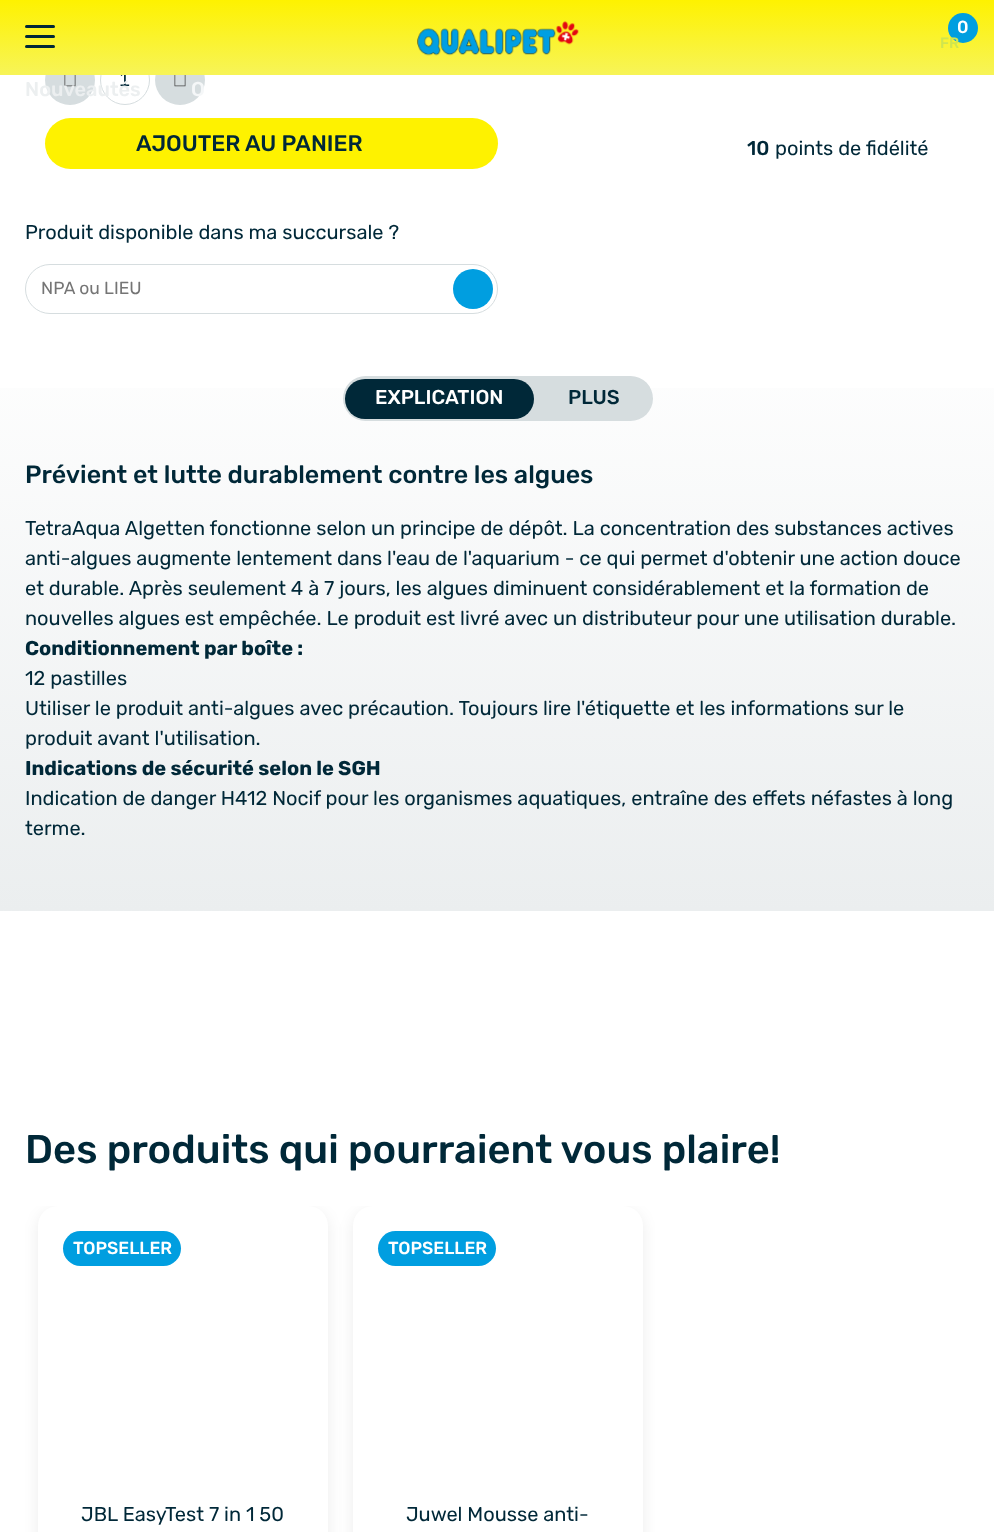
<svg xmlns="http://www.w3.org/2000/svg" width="994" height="1532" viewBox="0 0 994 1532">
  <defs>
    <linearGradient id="g1" gradientUnits="userSpaceOnUse" x1="498" y1="0" x2="498" y2="75"><stop offset="0" stop-color="rgb(254,242,0)"/><stop offset="1" stop-color="rgb(247,244,88)"/></linearGradient>
    <linearGradient id="g2" gradientUnits="userSpaceOnUse" x1="497" y1="314" x2="498" y2="911"><stop offset="0" stop-color="rgb(255,255,255)"/><stop offset="1" stop-color="rgb(235,238,239)"/></linearGradient>
    <clipPath id="clip1"><rect x="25" y="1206" width="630" height="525"/></clipPath>
  </defs>
  <rect width="100%" height="100%" fill="rgb(255,255,255)"/>
  <circle cx="70" cy="80" r="25" fill="rgb(214,221,223)"/>
  <circle cx="125" cy="80" r="24.5" fill="none" stroke="rgb(214,221,223)"/>
  <text x="119" y="86" font-family="Liberation Sans" font-size="20" fill="rgb(0,40,56)">1</text>
  <circle cx="180" cy="80" r="25" fill="rgb(214,221,223)"/>
  <rect x="0" y="0" width="994" height="75" fill="url(#g1)"/>
  <rect x="25" y="25" width="30" height="3" rx="1.5" fill="rgb(0,40,56)"/>
  <rect x="25" y="35" width="30" height="3" rx="1.5" fill="rgb(0,40,56)"/>
  <rect x="25" y="45" width="30" height="3" rx="1.5" fill="rgb(0,40,56)"/>
  <image x="417" y="21" width="162" height="35" href="pic1.png"/>
  <circle cx="963" cy="28" r="15" fill="rgb(0,158,224)"/>
  <text x="940" y="48" font-family="Rubik" font-size="15" font-weight="500" fill="rgb(208,229,79)">FR</text>
  <text x="957" y="33" font-family="Rubik" font-size="17.5" font-weight="500" fill="rgb(255,255,255)">0</text>
  <image x="64" y="75" width="12" height="12" href="pic2.png"/>
  <text x="25" y="96" font-family="Rubik" font-size="20" font-weight="500" fill="rgb(236,239,240)">Nouveautés</text>
  <text x="191" y="96" font-family="Rubik" font-size="20" font-weight="500" fill="rgb(245,247,248)">O</text>
  <image x="174" y="75" width="12" height="12" href="pic2.png"/>
  <rect x="45" y="118" width="453" height="51" rx="25.5" fill="rgb(254,242,0)"/>
  <text x="136" y="151" font-family="Rubik" font-size="22.5" font-weight="500" fill="rgb(0,40,56)">AJOUTER AU PANIER</text>
  <text x="747" y="155" font-family="Rubik" font-size="20" font-weight="500" fill="rgb(0,40,56)">10</text>
  <g font-family="Rubik" font-size="20" fill="rgb(0,40,56)">
    <text x="775" y="155">points de fidélité</text>
    <text x="25" y="239">Produit disponible dans ma succursale ?</text>
  </g>
  <rect x="25.5" y="264.5" width="472" height="49" rx="24.5" fill="none" stroke="rgb(214,221,223)"/>
  <text x="41" y="294" font-family="Rubik" font-size="17.5" fill="rgb(117,117,117)">NPA ou LIEU</text>
  <circle cx="473" cy="289" r="20" fill="rgb(0,158,224)"/>
  <rect x="0" y="388" width="994" height="523" fill="url(#g2)"/>
  <rect x="343" y="376" width="310" height="45" rx="22.5" fill="rgb(214,221,223)"/>
  <rect x="345" y="379" width="189" height="40" rx="20" fill="rgb(0,40,56)"/>
  <text x="375" y="404" font-family="Rubik" font-size="20" font-weight="500" fill="rgb(255,255,255)">EXPLICATION</text>
  <text x="568" y="404" font-family="Rubik" font-size="20" font-weight="500" fill="rgb(0,40,56)">PLUS</text>
  <text x="25" y="483" font-family="Rubik" font-size="25" font-weight="500" fill="rgb(0,40,56)">Prévient et lutte durablement contre les algues</text>
  <g font-family="Rubik" font-size="20" fill="rgb(0,40,56)">
    <text>
      <tspan x="25" y="535">TetraAqua Algetten fonctionne selon un principe de dépôt. La concentration des substances actives</tspan>
      <tspan x="25" y="565">anti-algues augmente lentement dans l'eau de l'aquarium - ce qui permet d'obtenir une action douce</tspan>
      <tspan x="25" y="595">et durable. Après seulement 4 à 7 jours, les algues diminuent considérablement et la formation de</tspan>
      <tspan x="25" y="625">nouvelles algues est empêchée. Le produit est livré avec un distributeur pour une utilisation durable.</tspan>
    </text>
  </g>
  <text x="25" y="655" font-family="Rubik" font-size="20" font-weight="bold" fill="rgb(0,40,56)">Conditionnement par boîte :</text>
  <g font-family="Rubik" font-size="20" fill="rgb(0,40,56)">
    <text>
      <tspan x="25" y="685">12 pastilles</tspan>
      <tspan x="25" y="715">Utiliser le produit anti-algues avec précaution. Toujours lire l'étiquette et les informations sur le</tspan>
      <tspan x="25" y="745">produit avant l'utilisation.</tspan>
    </text>
  </g>
  <text x="25" y="775" font-family="Rubik" font-size="20" font-weight="bold" fill="rgb(0,40,56)">Indications de sécurité selon le SGH</text>
  <g font-family="Rubik" font-size="20" fill="rgb(0,40,56)">
    <text>
      <tspan x="25" y="805">Indication de danger H412 Nocif pour les organismes aquatiques, entraîne des effets néfastes à long</tspan>
      <tspan x="25" y="835">terme.</tspan>
    </text>
  </g>
  <text x="25" y="1163" font-family="Rubik" font-size="40" font-weight="500" fill="rgb(0,40,56)">Des produits qui pourraient vous plaire!</text>
  <g clip-path="url(#clip1)">
    <rect x="38" y="1211" width="290" height="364" rx="20" fill="rgba(0,0,0,0.08)" filter="blur(7.5px)"/>
  </g>
  <rect x="38" y="1206" width="290" height="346" rx="20" fill="rgb(255,255,255)"/>
  <rect x="63" y="1231" width="118" height="35" rx="17.5" fill="rgb(0,158,224)"/>
  <text x="73" y="1254" font-family="Rubik" font-size="17.5" font-weight="500" fill="rgb(255,255,255)">TOPSELLER</text>
  <text x="81" y="1521" font-family="Rubik" font-size="20" fill="rgb(0,40,56)">JBL EasyTest 7 in 1 50</text>
  <g clip-path="url(#clip1)">
    <rect x="353" y="1211" width="290" height="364" rx="20" fill="rgba(0,0,0,0.08)" filter="blur(7.5px)"/>
  </g>
  <rect x="353" y="1206" width="290" height="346" rx="20" fill="rgb(255,255,255)"/>
  <rect x="378" y="1231" width="118" height="35" rx="17.5" fill="rgb(0,158,224)"/>
  <text x="388" y="1254" font-family="Rubik" font-size="17.5" font-weight="500" fill="rgb(255,255,255)">TOPSELLER</text>
  <text x="406" y="1521" font-family="Rubik" font-size="20" fill="rgb(0,40,56)">Juwel Mousse anti-</text>
</svg>
